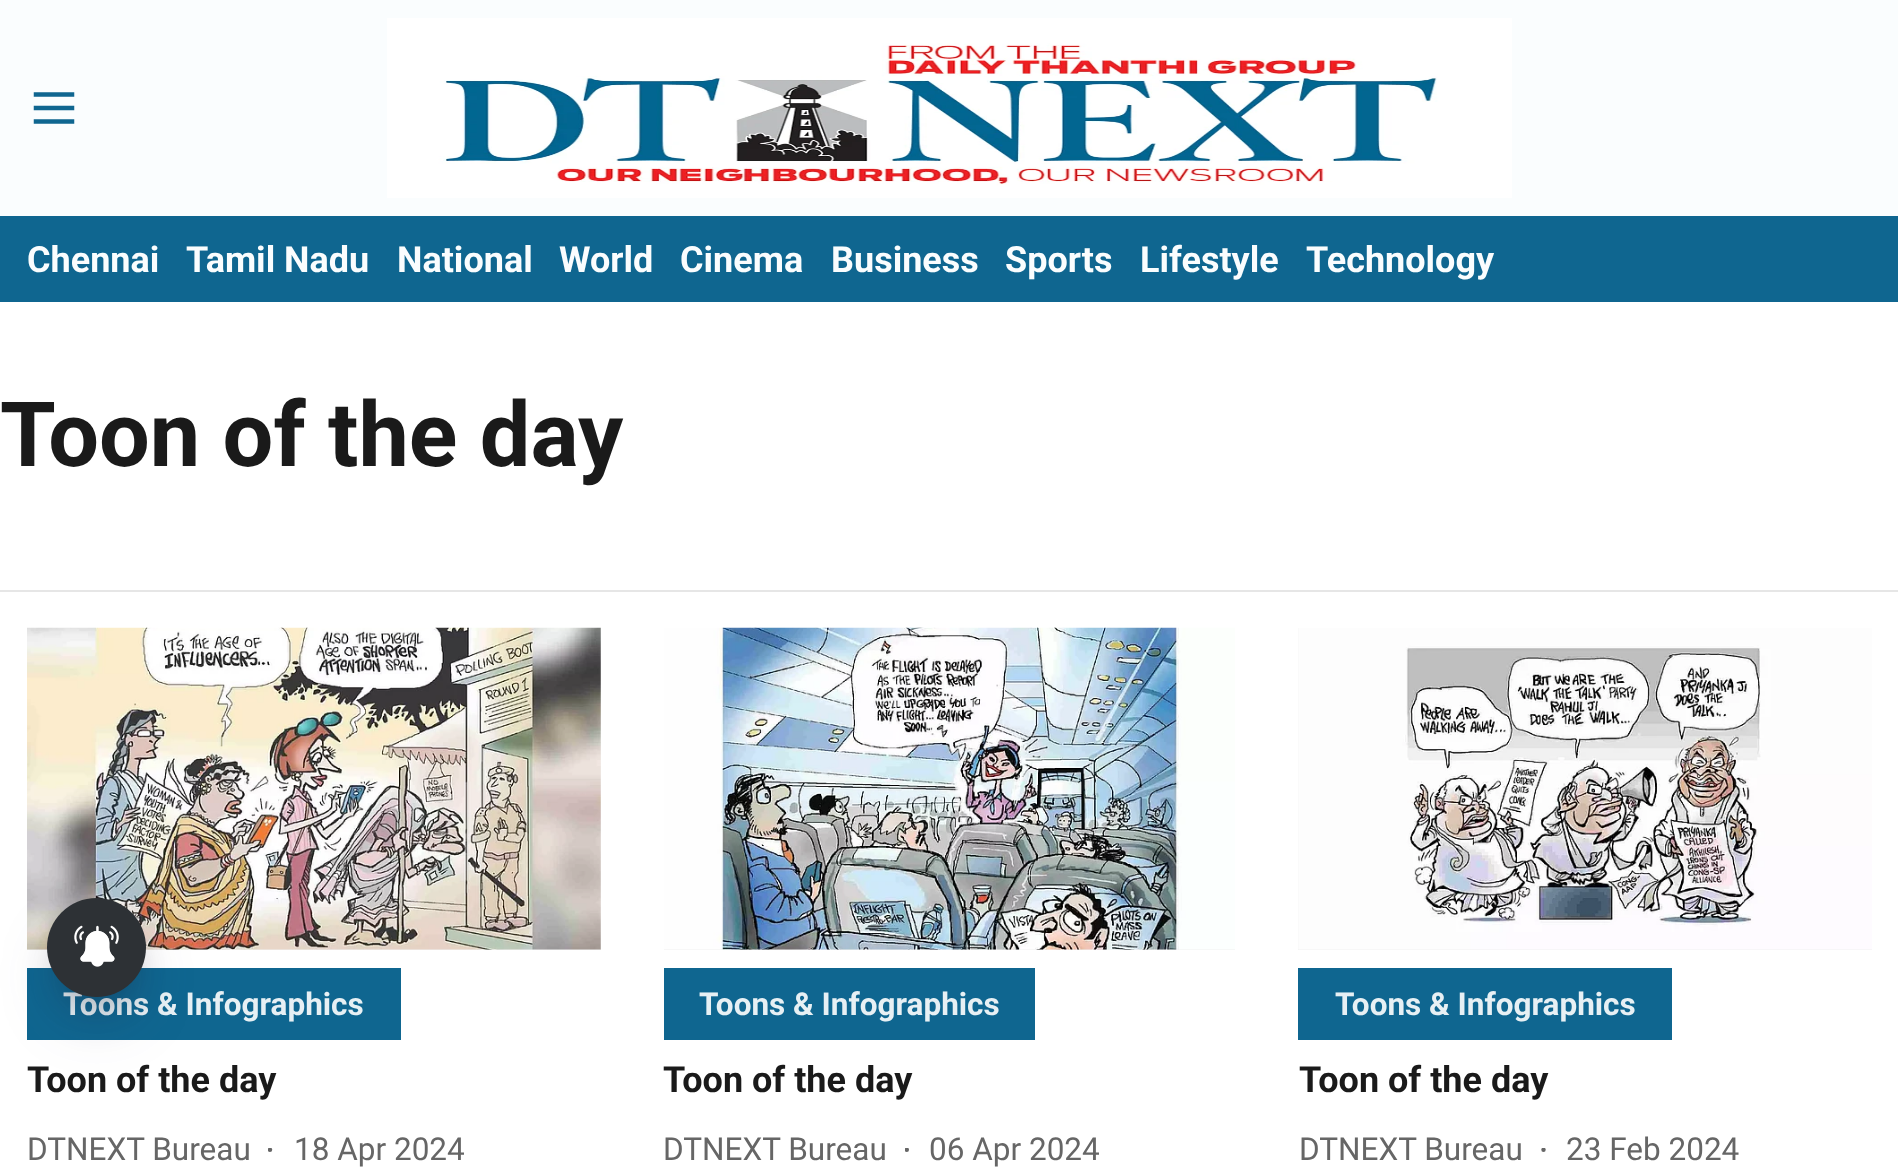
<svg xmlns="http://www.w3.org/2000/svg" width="1898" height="1176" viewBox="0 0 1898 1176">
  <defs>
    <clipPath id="clip1"><rect x="268" y="1148" width="7" height="7"/></clipPath>
    <clipPath id="clip2"><rect x="905" y="1148" width="7" height="7"/></clipPath>
    <clipPath id="clip3"><rect x="1541" y="1148" width="7" height="7"/></clipPath>
  </defs>
  <rect width="100%" height="100%" fill="rgb(255,255,255)"/>
  <rect x="0" y="0" width="1898" height="216" fill="rgb(250,253,254)"/>
  <image x="33" y="92" width="42" height="32" href="pic1.png"/>
  <image x="387" y="18" width="1125" height="180" href="pic2.png"/>
  <rect x="0" y="216" width="1898" height="86" fill="rgb(15,102,144)"/>
  <g font-family="Roboto" font-size="36" font-weight="bold" fill="rgb(250,253,254)">
    <text x="27" y="272">Chennai</text>
    <text x="186" y="272">Tamil Nadu</text>
    <text x="397" y="272">National</text>
    <text x="559" y="272">World</text>
    <text x="680" y="272">Cinema</text>
    <text x="831" y="272">Business</text>
    <text x="1005" y="272">Sports</text>
    <text x="1140" y="272">Lifestyle</text>
    <text x="1306" y="272">Technology</text>
  </g>
  <rect x="0" y="590" width="1898" height="2" fill="rgb(230,230,230)"/>
  <text x="0" y="466" font-family="Roboto" font-size="90" font-weight="bold" fill="rgb(26,26,26)">Toon of the day</text>
  <rect x="27" y="628" width="574" height="322" fill="rgb(240,240,240)"/>
  <image x="27" y="627" width="574" height="323" href="pic3.png"/>
  <rect x="27" y="968" width="374" height="72" fill="rgb(15,102,144)"/>
  <text x="63" y="1015" font-family="Roboto" font-size="31.5" font-weight="bold" fill="rgb(231,240,244)">Toons &amp; Infographics</text>
  <text x="27" y="1092" font-family="Roboto" font-size="36" font-weight="bold" fill="rgb(26,26,26)">Toon of the day</text>
  <text x="27" y="1160" font-family="Roboto" font-size="31.5" fill="rgb(102,102,102)">DTNEXT Bureau</text>
  <g clip-path="url(#clip1)">
    <circle cx="270" cy="1149.8" r="2.2" fill="rgb(102,102,102)"/>
  </g>
  <text x="294" y="1160" font-family="Roboto" font-size="31.5" fill="rgb(102,102,102)">18 Apr 2024</text>
  <rect x="664" y="949" width="571" height="1" fill="rgb(240,240,240)"/>
  <image x="664" y="627" width="571" height="323" href="pic4.png"/>
  <rect x="664" y="968" width="371" height="72" fill="rgb(15,102,144)"/>
  <text x="699" y="1015" font-family="Roboto" font-size="31.5" font-weight="bold" fill="rgb(231,240,244)">Toons &amp; Infographics</text>
  <text x="663" y="1092" font-family="Roboto" font-size="36" font-weight="bold" fill="rgb(26,26,26)">Toon of the day</text>
  <text x="663" y="1160" font-family="Roboto" font-size="31.5" fill="rgb(102,102,102)">DTNEXT Bureau</text>
  <g clip-path="url(#clip2)">
    <circle cx="906.8" cy="1149.8" r="2.2" fill="rgb(102,102,102)"/>
  </g>
  <text x="929" y="1160" font-family="Roboto" font-size="31.5" fill="rgb(102,102,102)">06 Apr 2024</text>
  <rect x="1298" y="628" width="574" height="322" fill="rgb(240,240,240)"/>
  <image x="1298" y="628" width="574" height="322" href="pic5.png"/>
  <rect x="1298" y="968" width="374" height="72" fill="rgb(15,102,144)"/>
  <text x="1335" y="1015" font-family="Roboto" font-size="31.5" font-weight="bold" fill="rgb(231,240,244)">Toons &amp; Infographics</text>
  <text x="1299" y="1092" font-family="Roboto" font-size="36" font-weight="bold" fill="rgb(26,26,26)">Toon of the day</text>
  <text x="1299" y="1160" font-family="Roboto" font-size="31.5" fill="rgb(102,102,102)">DTNEXT Bureau</text>
  <g clip-path="url(#clip3)">
    <circle cx="1543.5" cy="1149.8" r="2.2" fill="rgb(102,102,102)"/>
  </g>
  <text x="1566" y="1160" font-family="Roboto" font-size="31.5" fill="rgb(102,102,102)">23 Feb 2024</text>
  <rect x="65" y="934" width="63" height="63" rx="31.5" fill="rgba(0,0,0,0.3)" filter="blur(18px)"/>
  <rect x="59" y="938" width="76" height="77" rx="38" fill="rgba(50,50,93,0.25)" filter="blur(30.5px)"/>
  <circle cx="96.5" cy="947.5" r="49.5" fill="rgb(45,49,53)"/>
  <image x="74" y="925" width="45" height="42" href="pic6.png"/>
</svg>
